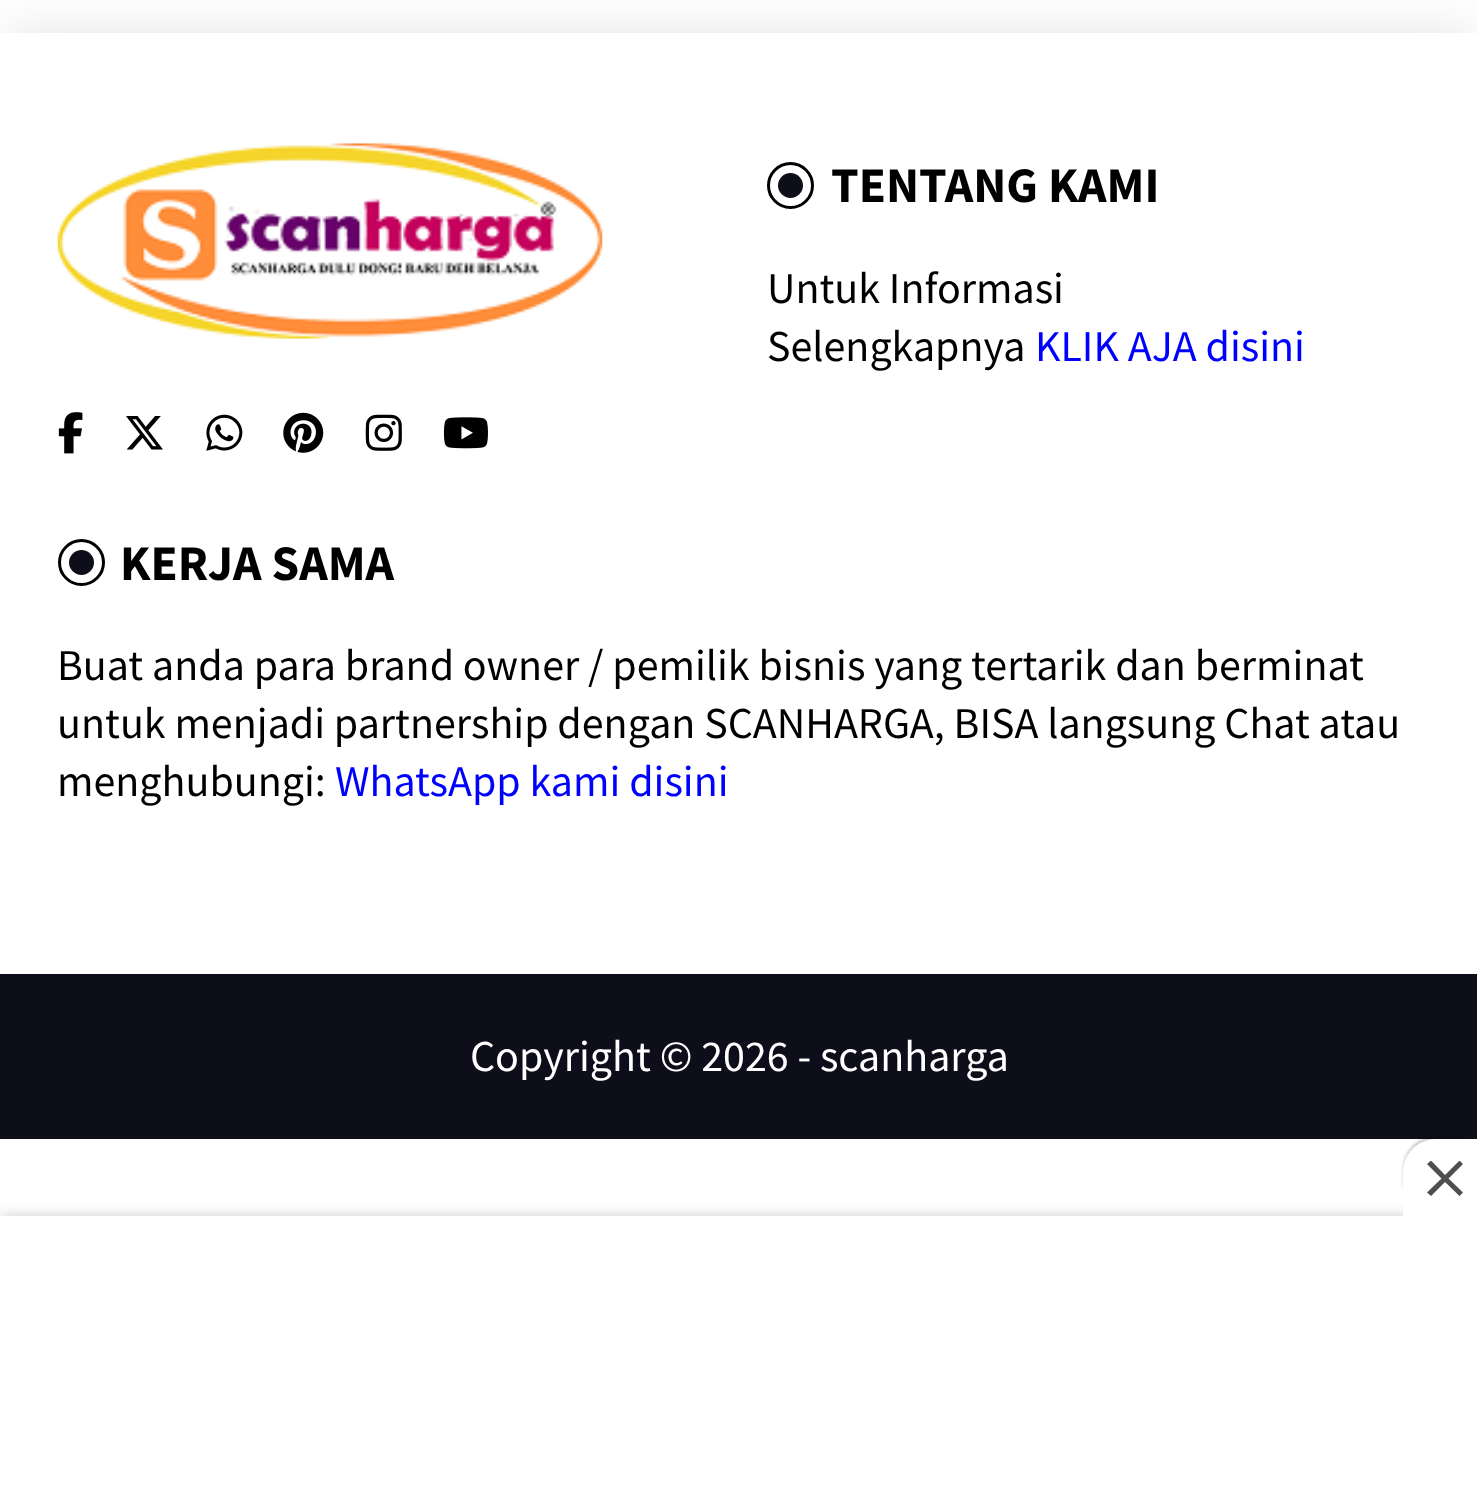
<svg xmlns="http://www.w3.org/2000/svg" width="1477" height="1500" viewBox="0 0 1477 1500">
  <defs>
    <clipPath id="clip1"><rect x="1427" y="1161" width="36" height="35"/></clipPath>
  </defs>
  <rect width="100%" height="100%" fill="rgb(255,255,255)"/>
  <rect x="6" y="36" width="1468" height="929" fill="rgba(0,0,0,0.12)" filter="blur(27.5px)"/>
  <rect x="0" y="33" width="1477" height="941" fill="rgb(255,255,255)"/>
  <image x="57" y="143" width="546" height="196" href="pic1.png"/>
  <image x="58" y="412" width="25" height="42" href="pic2.png"/>
  <image x="126" y="416" width="37" height="34" href="pic3.png"/>
  <image x="206" y="414" width="37" height="37" href="pic4.png"/>
  <image x="283" y="412" width="41" height="41" href="pic5.png"/>
  <image x="365" y="414" width="37" height="37" href="pic6.png"/>
  <image x="443" y="417" width="45" height="32" href="pic7.png"/>
  <circle cx="790.5" cy="185.5" r="16.5" fill="rgb(14,14,27)" stroke="rgb(255,255,255)" stroke-width="8"/>
  <circle cx="790.5" cy="185.5" r="22" fill="none" stroke="rgb(0,0,0)" stroke-width="3"/>
  <text x="831" y="202" font-family="Source Sans Pro" font-size="49.75" font-weight="bold" fill="rgb(0,0,0)">TENTANG KAMI</text>
  <g font-family="Source Sans Pro" font-size="44" fill="rgb(0,0,0)">
    <text>
      <tspan x="767" y="303">Untuk Informasi</tspan>
      <tspan x="767" y="361">Selengkapnya</tspan>
    </text>
  </g>
  <text x="1035" y="361" font-family="Source Sans Pro" font-size="44" fill="rgb(0,0,255)">KLIK AJA disini</text>
  <circle cx="81.5" cy="562.5" r="16.5" fill="rgb(14,14,27)" stroke="rgb(255,255,255)" stroke-width="8"/>
  <circle cx="81.5" cy="562.5" r="22" fill="none" stroke="rgb(0,0,0)" stroke-width="3"/>
  <text x="120" y="580" font-family="Source Sans Pro" font-size="49.75" font-weight="bold" fill="rgb(0,0,0)">KERJA SAMA</text>
  <g font-family="Source Sans Pro" font-size="44" fill="rgb(0,0,0)">
    <text>
      <tspan x="57" y="680">Buat anda para brand owner / pemilik bisnis yang tertarik dan berminat</tspan>
      <tspan x="57" y="738">untuk menjadi partnership dengan SCANHARGA, BISA langsung Chat atau</tspan>
      <tspan x="57" y="796">menghubungi:</tspan>
    </text>
  </g>
  <text x="335" y="796" font-family="Source Sans Pro" font-size="44" fill="rgb(0,0,255)">WhatsApp kami disini</text>
  <rect x="0" y="974" width="1477" height="165" fill="rgb(14,14,27)"/>
  <text x="470" y="1071" font-family="Source Sans Pro" font-size="44" fill="rgb(255,255,255)">Copyright © 2026 - scanharga</text>
  <rect x="0" y="1216" width="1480" height="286" fill="rgba(0,0,0,0.2)" filter="blur(7px)"/>
  <rect x="0" y="1216" width="1477" height="284" fill="rgb(255,255,255)"/>
  <rect x="1403" y="1136" width="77" height="77" rx="33" fill="rgba(0,0,0,0.2)" filter="blur(1.5px)"/>
  <path d="M1436 1139H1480V1216H1403V1172C1403 1154 1418 1139 1436 1139Z" fill="rgb(255,255,255)"/>
  <g clip-path="url(#clip1)">
    <path d="M1463 1164L1459.5 1160.5L1445 1175L1431 1160.5L1427 1164L1441.5 1178.5L1427 1192.5L1431 1196L1445 1182L1459.5 1196L1463 1192.5L1448.5 1178.5Z" fill="rgb(79,79,79)"/>
  </g>
</svg>
